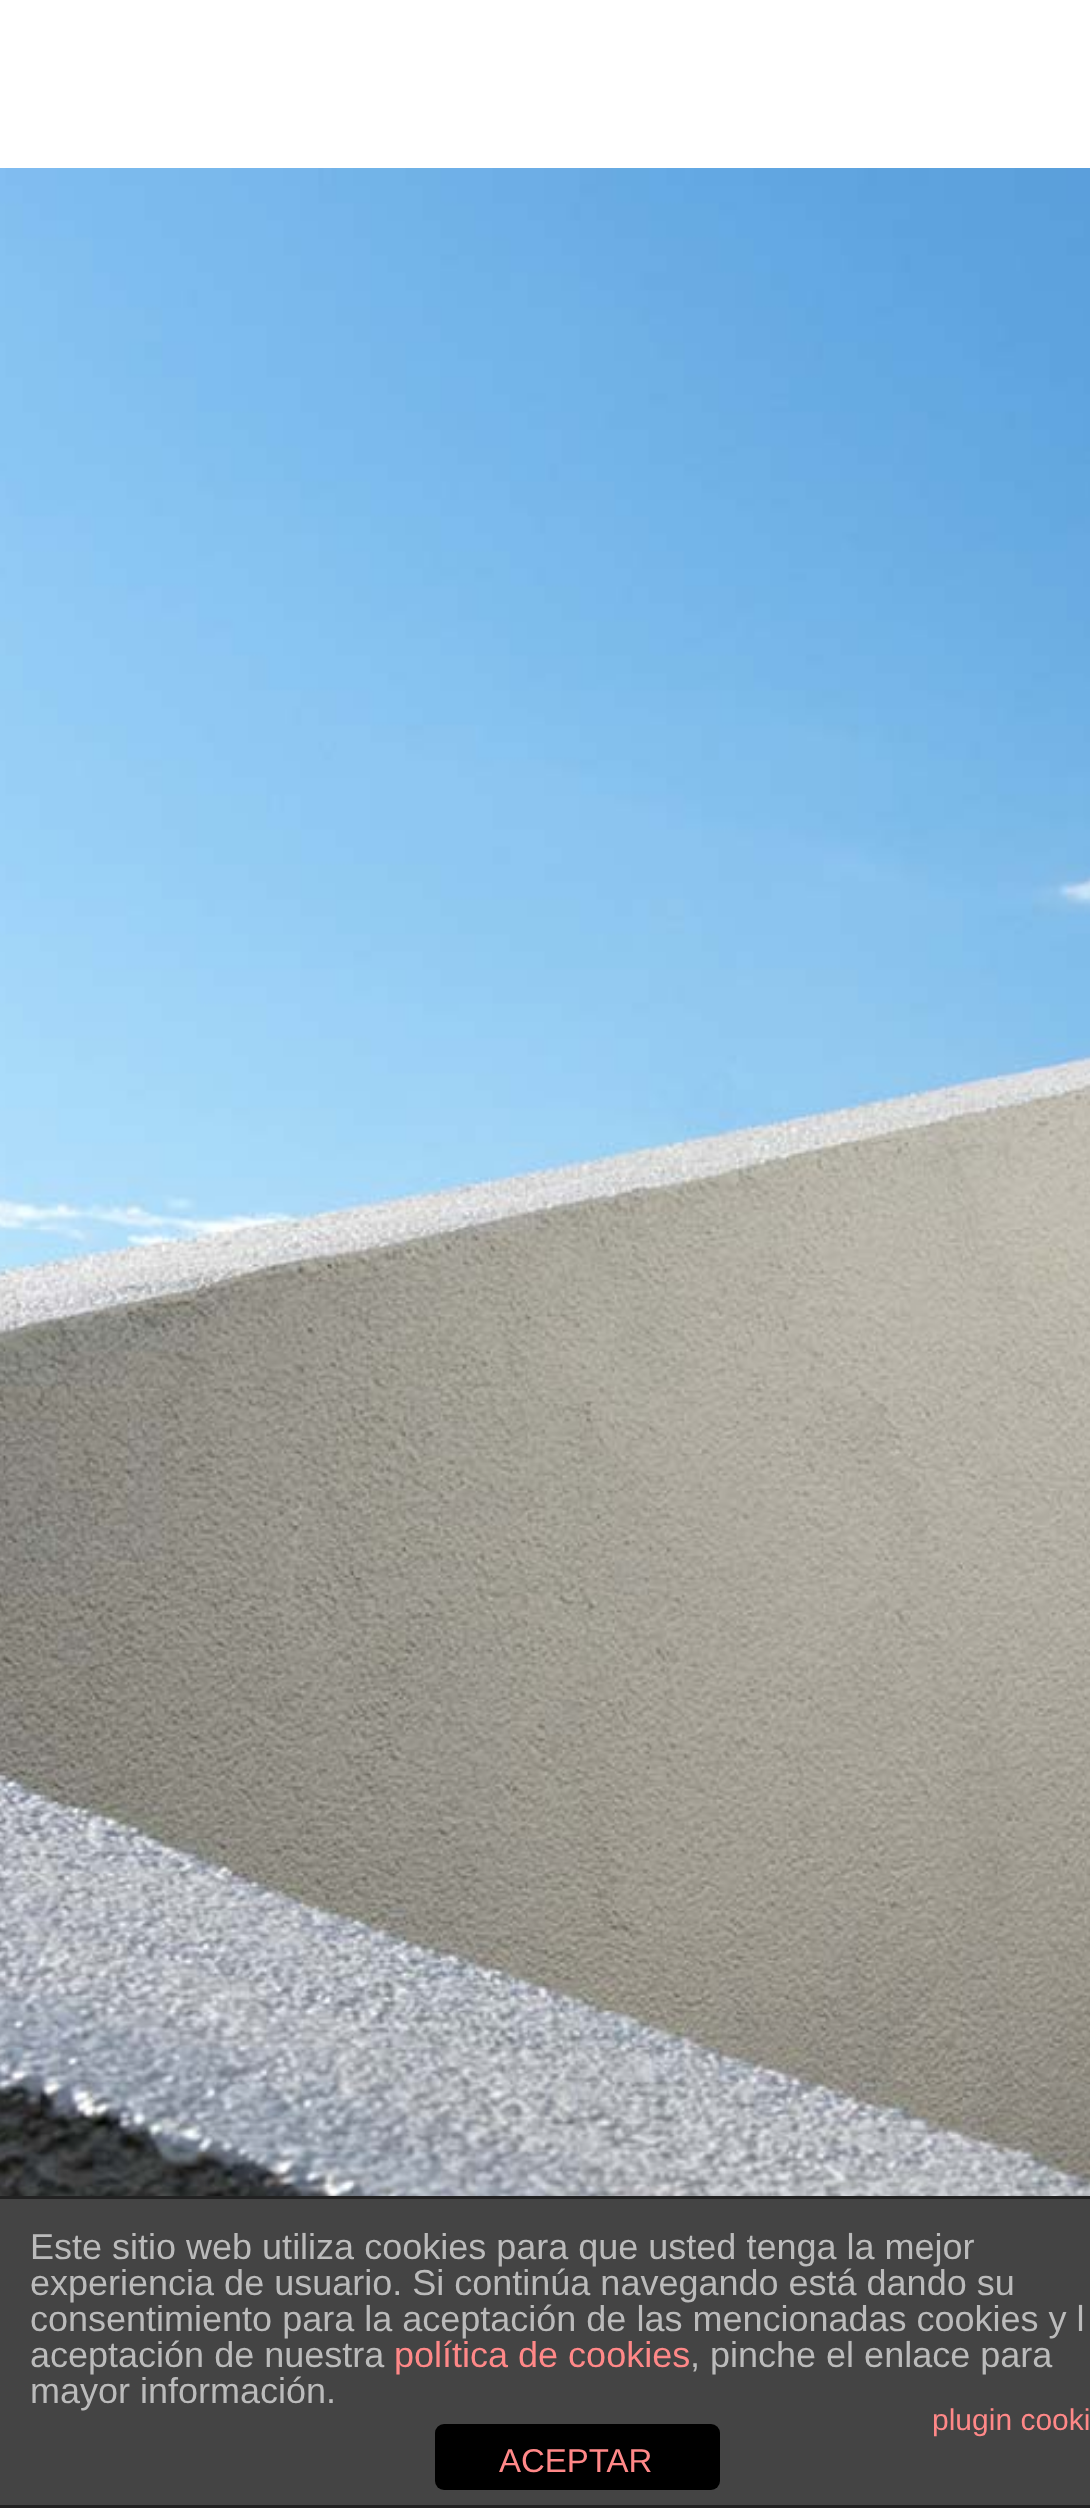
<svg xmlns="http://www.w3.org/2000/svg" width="1090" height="2508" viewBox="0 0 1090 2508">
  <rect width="100%" height="100%" fill="rgb(255,255,255)"/>
  <image x="0" y="168" width="1090" height="2028" href="pic1.png"/>
  <rect x="0" y="2199" width="1090" height="306" fill="rgb(68,68,68)"/>
  <rect x="0" y="2196" width="1090" height="3" fill="rgb(34,34,34)"/>
  <rect x="0" y="2505" width="1090" height="3" fill="rgb(34,34,34)"/>
  <g font-family="Liberation Sans" font-size="36" fill="rgb(187,187,187)">
    <text>
      <tspan x="30" y="2259">Este sitio web utiliza cookies para que usted tenga la mejor</tspan>
      <tspan x="30" y="2295">experiencia de usuario. Si continúa navegando está dando su</tspan>
      <tspan x="30" y="2331">consentimiento para la aceptación de las mencionadas cookies y l</tspan>
      <tspan x="30" y="2367">aceptación de nuestra</tspan>
    </text>
  </g>
  <text x="394" y="2367" font-family="Liberation Sans" font-size="36" fill="rgb(255,136,136)">política de cookies</text>
  <g font-family="Liberation Sans" font-size="36" fill="rgb(187,187,187)">
    <text x="690" y="2367">, pinche el enlace para</text>
    <text x="30" y="2403">mayor información.</text>
  </g>
  <text x="932" y="2430" font-family="Liberation Sans" font-size="30" fill="rgb(255,136,136)">plugin cooki</text>
  <rect x="435" y="2424" width="285" height="66" rx="9" fill="rgb(0,0,0)"/>
  <text x="499" y="2472" font-family="Liberation Sans" font-size="33" fill="rgb(255,136,136)">ACEPTAR</text>
</svg>
